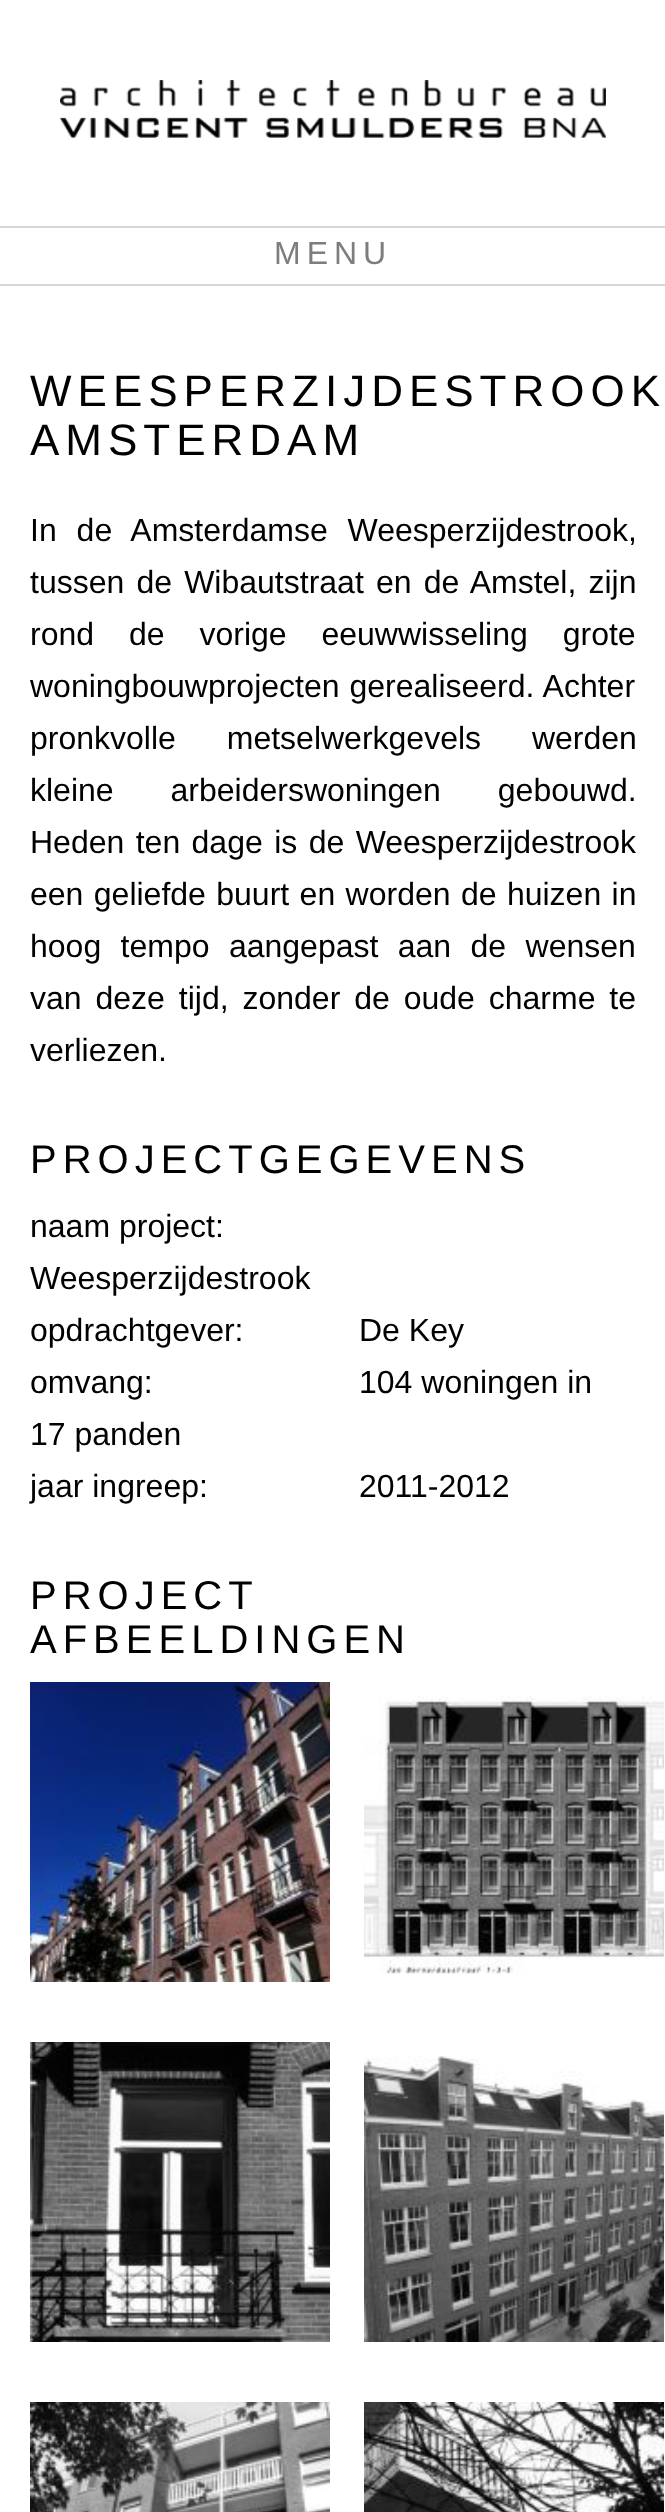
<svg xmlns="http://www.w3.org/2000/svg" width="665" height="2512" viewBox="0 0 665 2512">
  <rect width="100%" height="100%" fill="rgb(255,255,255)"/>
  <image x="60" y="80" width="546" height="58" href="pic1.png"/>
  <rect x="0" y="226" width="665" height="2" fill="rgb(214,214,214)"/>
  <rect x="0" y="284" width="665" height="2" fill="rgb(214,214,214)"/>
  <text x="274" y="264" font-family="Liberation Sans" font-size="32" letter-spacing="6" fill="rgb(125,125,125)">MENU</text>
  <g font-family="Liberation Sans" font-size="44" letter-spacing="6" fill="rgb(0,0,0)">
    <text>
      <tspan x="30" y="406">WEESPERZIJDESTROOK</tspan>
      <tspan x="30" y="455">AMSTERDAM</tspan>
    </text>
  </g>
  <g font-family="Liberation Sans" font-size="32" fill="rgb(0,0,0)">
    <text>
      <tspan x="30" y="541" word-spacing="11">In de Amsterdamse Weesperzijdestrook,</tspan>
      <tspan x="30" y="593" word-spacing="3.25">tussen de Wibautstraat en de Amstel, zijn</tspan>
      <tspan x="30" y="645" word-spacing="26">rond de vorige eeuwwisseling grote</tspan>
      <tspan x="30" y="697" word-spacing="1">woningbouwprojecten gerealiseerd. Achter</tspan>
      <tspan x="30" y="749" word-spacing="42">pronkvolle metselwerkgevels werden</tspan>
      <tspan x="30" y="801" word-spacing="48">kleine arbeiderswoningen gebouwd.</tspan>
      <tspan x="30" y="853" word-spacing="2.5">Heden ten dage is de Weesperzijdestrook</tspan>
      <tspan x="30" y="905" word-spacing="1.5">een geliefde buurt en worden de huizen in</tspan>
      <tspan x="30" y="957" word-spacing="10.5">hoog tempo aangepast aan de wensen</tspan>
      <tspan x="30" y="1009" word-spacing="5">van deze tijd, zonder de oude charme te</tspan>
      <tspan x="30" y="1061">verliezen.</tspan>
    </text>
  </g>
  <text x="30" y="1173" font-family="Liberation Sans" font-size="40" letter-spacing="6" fill="rgb(0,0,0)">PROJECTGEGEVENS</text>
  <g font-family="Liberation Sans" font-size="32" fill="rgb(0,0,0)">
    <text>
      <tspan x="30" y="1237">naam project:</tspan>
      <tspan x="30" y="1289">Weesperzijdestrook</tspan>
      <tspan x="30" y="1341">opdrachtgever:</tspan>
    </text>
    <text x="359" y="1341">De Key</text>
    <text x="30" y="1393">omvang:</text>
    <text x="359" y="1393">104 woningen in</text>
    <text>
      <tspan x="30" y="1445">17 panden</tspan>
      <tspan x="30" y="1497">jaar ingreep:</tspan>
    </text>
    <text x="359" y="1497">2011-2012</text>
  </g>
  <g font-family="Liberation Sans" font-size="40" letter-spacing="6" fill="rgb(0,0,0)">
    <text>
      <tspan x="30" y="1609">PROJECT</tspan>
      <tspan x="30" y="1653">AFBEELDINGEN</tspan>
    </text>
  </g>
  <image x="30" y="1682" width="300" height="300" href="pic2.png"/>
  <image x="364" y="1696" width="300" height="278" href="pic3.png"/>
  <image x="30" y="2042" width="300" height="300" href="pic4.png"/>
  <image x="364" y="2056" width="300" height="286" href="pic5.png"/>
  <image x="30" y="2402" width="300" height="110" href="pic6.png"/>
  <image x="364" y="2402" width="300" height="110" href="pic7.png"/>
</svg>
